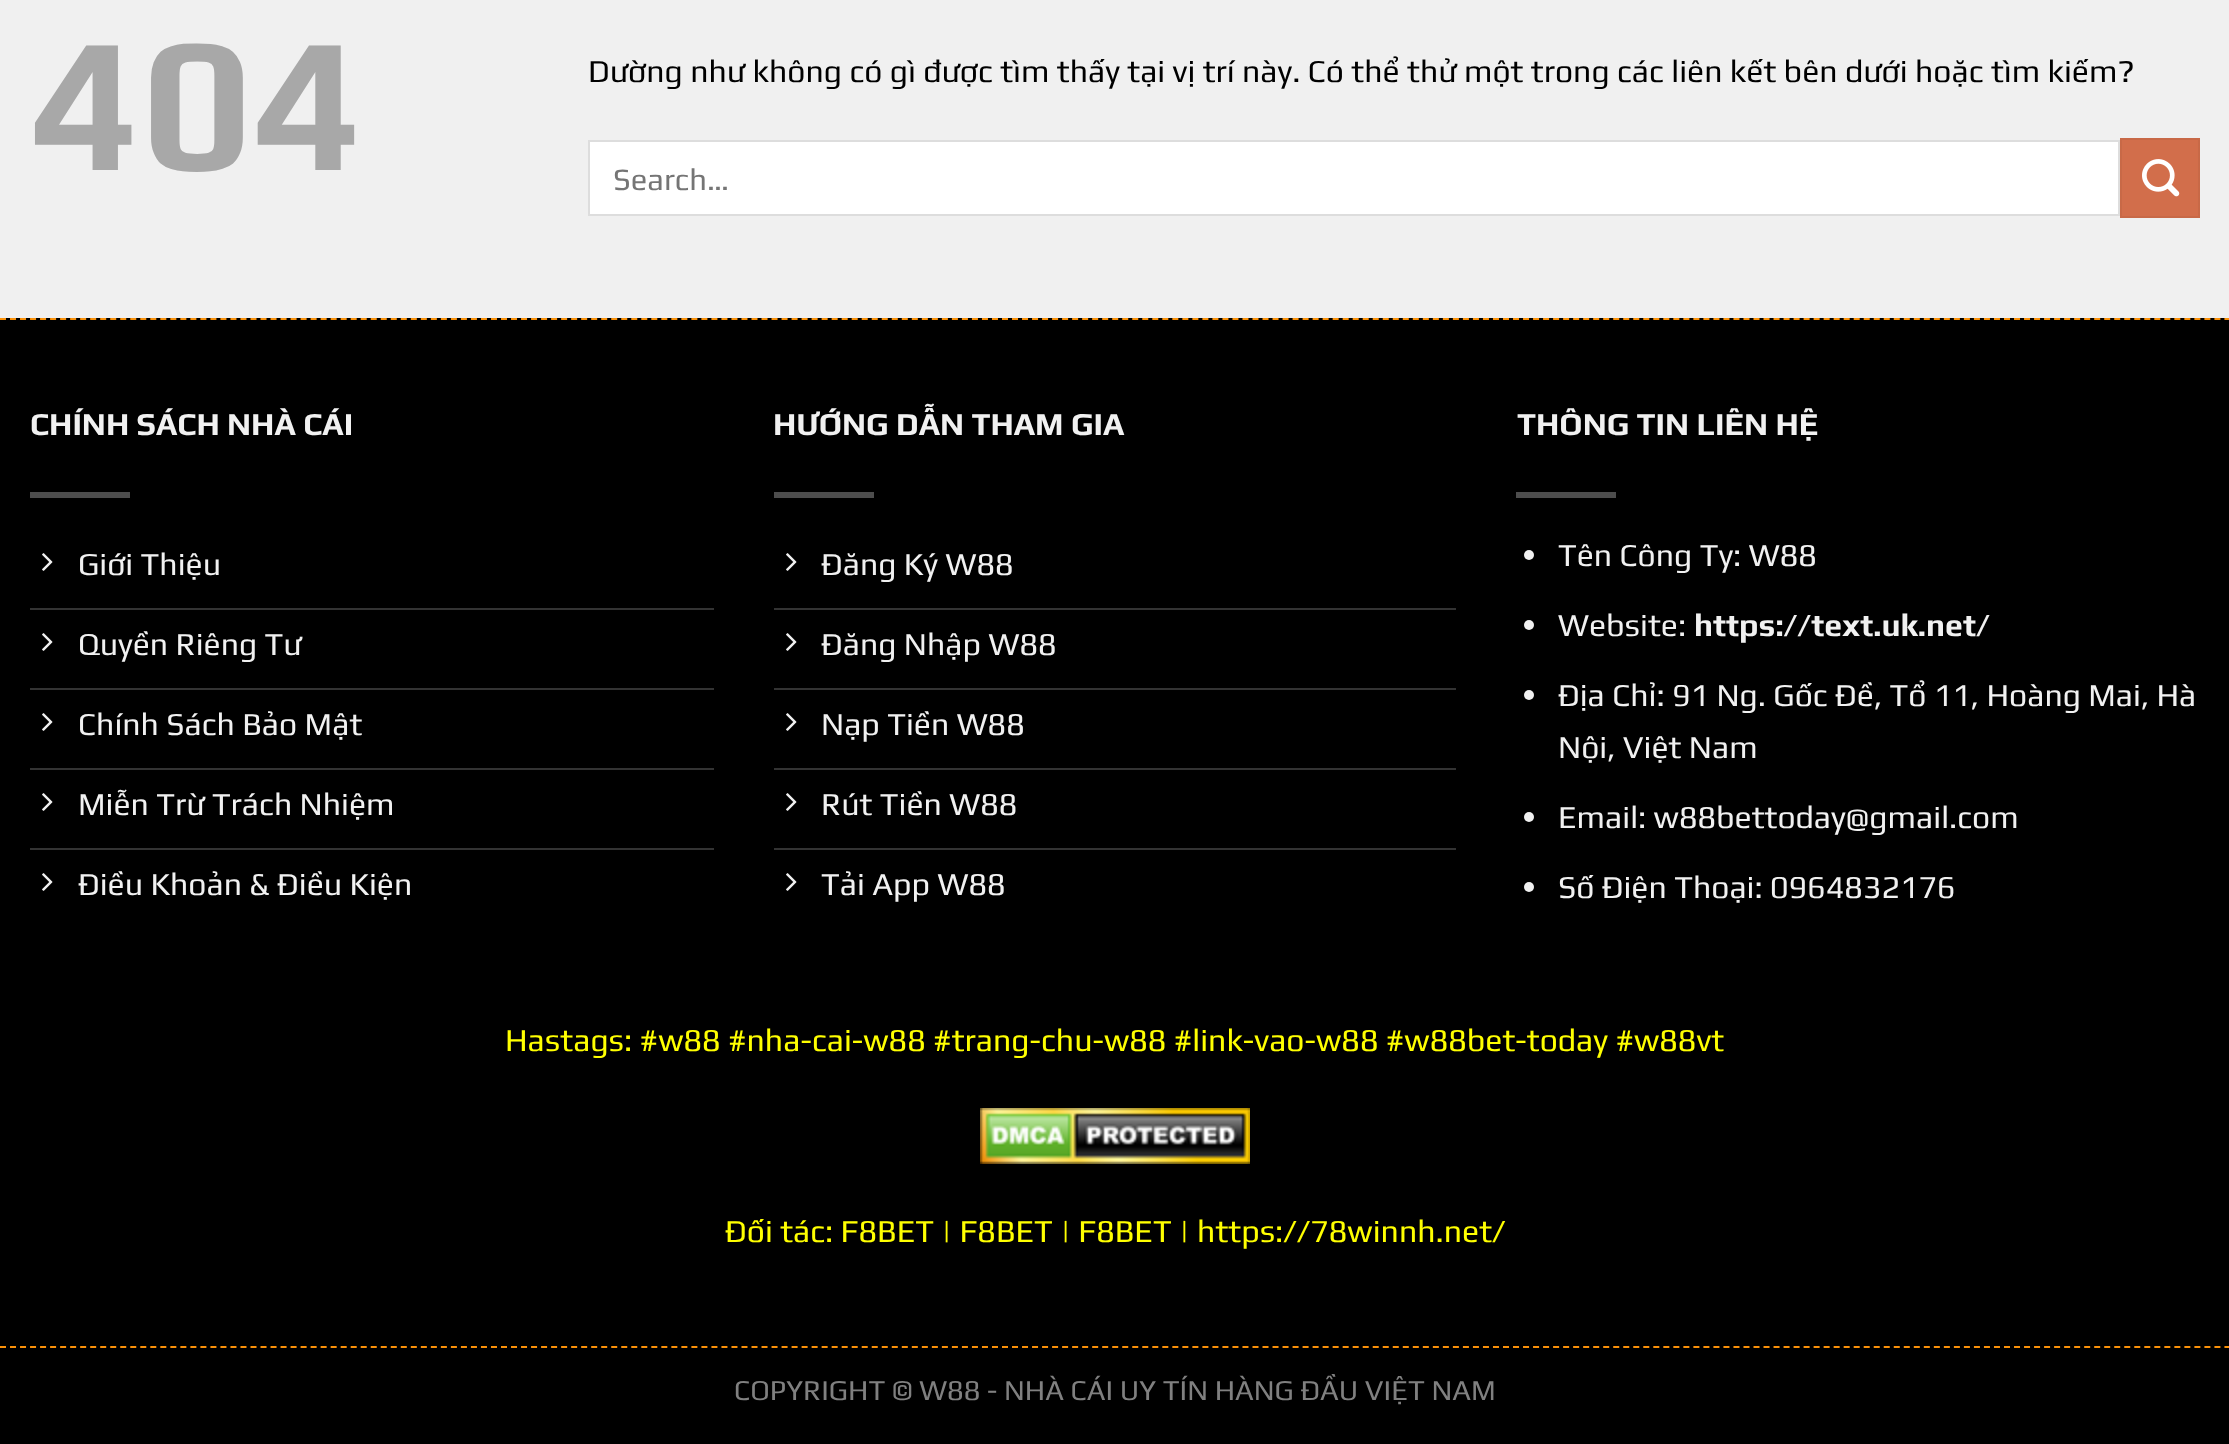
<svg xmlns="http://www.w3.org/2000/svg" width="2229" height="1444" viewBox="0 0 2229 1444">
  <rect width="100%" height="100%" fill="rgb(240,240,240)"/>
  <text x="30" y="170" font-family="Play" font-size="192" font-weight="bold" fill="rgb(168,168,168)">404</text>
  <text x="588" y="82" font-family="Play" font-size="32" fill="rgb(0,0,0)">Dường như không có gì được tìm thấy tại vị trí này. Có thể thử một trong các liên kết bên dưới hoặc tìm kiếm?</text>
  <rect x="589" y="141" width="1530" height="74" fill="rgb(255,255,255)" stroke="rgb(221,221,221)" stroke-width="2"/>
  <text x="613" y="190" font-family="Play" font-size="31" fill="rgb(117,117,117)">Search…</text>
  <rect x="2121" y="139" width="78" height="78" fill="rgb(210,110,75)" stroke="rgb(200,105,71)" stroke-width="2"/>
  <image x="2142" y="159" width="38" height="38" href="pic1.png"/>
  <rect x="0" y="318" width="2229" height="1126" fill="rgb(0,0,0)"/>
  <path d="M0 319H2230" fill="none" stroke="rgb(250,145,9)" stroke-width="2" stroke-dasharray="6 4.02"/>
  <path d="M0 1347H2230" fill="none" stroke="rgb(250,145,9)" stroke-width="2" stroke-dasharray="6 4.02"/>
  <text x="30" y="435" font-family="Play" font-size="32" font-weight="bold" fill="rgb(241,241,241)">CHÍNH SÁCH NHÀ CÁI</text>
  <rect x="30" y="492" width="100" height="6" fill="rgb(77,77,77)"/>
  <rect x="30" y="608" width="684" height="2" fill="rgb(51,51,51)"/>
  <image x="42" y="553" width="11" height="18" href="pic2.png"/>
  <text x="78" y="575" font-family="Play" font-size="32" fill="rgb(241,241,241)">Giới Thiệu</text>
  <rect x="30" y="688" width="684" height="2" fill="rgb(51,51,51)"/>
  <image x="42" y="633" width="11" height="18" href="pic2.png"/>
  <text x="78" y="655" font-family="Play" font-size="32" fill="rgb(241,241,241)">Quyền Riêng Tư</text>
  <rect x="30" y="768" width="684" height="2" fill="rgb(51,51,51)"/>
  <image x="42" y="713" width="11" height="18" href="pic2.png"/>
  <text x="78" y="735" font-family="Play" font-size="32" fill="rgb(241,241,241)">Chính Sách Bảo Mật</text>
  <rect x="30" y="848" width="684" height="2" fill="rgb(51,51,51)"/>
  <image x="42" y="793" width="11" height="18" href="pic2.png"/>
  <text x="78" y="815" font-family="Play" font-size="32" fill="rgb(241,241,241)">Miễn Trừ Trách Nhiệm</text>
  <image x="42" y="873" width="11" height="18" href="pic2.png"/>
  <text x="78" y="895" font-family="Play" font-size="32" fill="rgb(241,241,241)">Điều Khoản &amp; Điều Kiện</text>
  <text x="773" y="435" font-family="Play" font-size="32" font-weight="bold" fill="rgb(241,241,241)">HƯỚNG DẪN THAM GIA</text>
  <rect x="774" y="492" width="100" height="6" fill="rgb(77,77,77)"/>
  <rect x="774" y="608" width="682" height="2" fill="rgb(51,51,51)"/>
  <image x="786" y="553" width="11" height="18" href="pic2.png"/>
  <text x="821" y="575" font-family="Play" font-size="32" fill="rgb(241,241,241)">Đăng Ký W88</text>
  <rect x="774" y="688" width="682" height="2" fill="rgb(51,51,51)"/>
  <image x="786" y="633" width="11" height="18" href="pic2.png"/>
  <text x="821" y="655" font-family="Play" font-size="32" fill="rgb(241,241,241)">Đăng Nhập W88</text>
  <rect x="774" y="768" width="682" height="2" fill="rgb(51,51,51)"/>
  <image x="786" y="713" width="11" height="18" href="pic2.png"/>
  <text x="821" y="735" font-family="Play" font-size="32" fill="rgb(241,241,241)">Nạp Tiền W88</text>
  <rect x="774" y="848" width="682" height="2" fill="rgb(51,51,51)"/>
  <image x="786" y="793" width="11" height="18" href="pic2.png"/>
  <text x="821" y="815" font-family="Play" font-size="32" fill="rgb(241,241,241)">Rút Tiền W88</text>
  <image x="786" y="873" width="11" height="18" href="pic2.png"/>
  <text x="821" y="895" font-family="Play" font-size="32" fill="rgb(241,241,241)">Tải App W88</text>
  <text x="1517" y="435" font-family="Play" font-size="32" font-weight="bold" fill="rgb(241,241,241)">THÔNG TIN LIÊN HỆ</text>
  <rect x="1516" y="492" width="100" height="6" fill="rgb(77,77,77)"/>
  <circle cx="1529" cy="555" r="5" fill="rgb(241,241,241)"/>
  <text x="1558" y="566" font-family="Play" font-size="32" fill="rgb(241,241,241)">Tên Công Ty: W88</text>
  <circle cx="1529" cy="625" r="5" fill="rgb(241,241,241)"/>
  <text x="1558" y="636" font-family="Play" font-size="32" fill="rgb(241,241,241)">Website:</text>
  <text x="1694" y="636" font-family="Play" font-size="32" font-weight="bold" fill="rgb(241,241,241)">https://text.uk.net/</text>
  <circle cx="1529" cy="695" r="5" fill="rgb(241,241,241)"/>
  <g font-family="Play" font-size="32" fill="rgb(241,241,241)">
    <text>
      <tspan x="1558" y="706">Địa Chỉ: 91 Ng. Gốc Đề, Tổ 11, Hoàng Mai, Hà</tspan>
      <tspan x="1558" y="758">Nội, Việt Nam</tspan>
    </text>
  </g>
  <circle cx="1529" cy="817" r="5" fill="rgb(241,241,241)"/>
  <text x="1558" y="828" font-family="Play" font-size="32" fill="rgb(241,241,241)">Email: w88bettoday@gmail.com</text>
  <circle cx="1529" cy="887" r="5" fill="rgb(241,241,241)"/>
  <text x="1558" y="898" font-family="Play" font-size="32" fill="rgb(241,241,241)">Số Điện Thoại: 0964832176</text>
  <text x="505" y="1051" font-family="Play" font-size="32" fill="rgb(255,255,0)">Hastags: #w88 #nha-cai-w88 #trang-chu-w88 #link-vao-w88 #w88bet-today #w88vt</text>
  <image x="980" y="1108" width="270" height="56" href="pic3.png"/>
  <text x="725" y="1242" font-family="Play" font-size="32" fill="rgb(255,255,0)">Đối tác: F8BET | F8BET | F8BET | https://78winnh.net/</text>
  <text x="734" y="1400" font-family="Play" font-size="28.8" fill="rgb(128,128,128)">COPYRIGHT © W88 - NHÀ CÁI UY TÍN HÀNG ĐẦU VIỆT NAM</text>
</svg>
